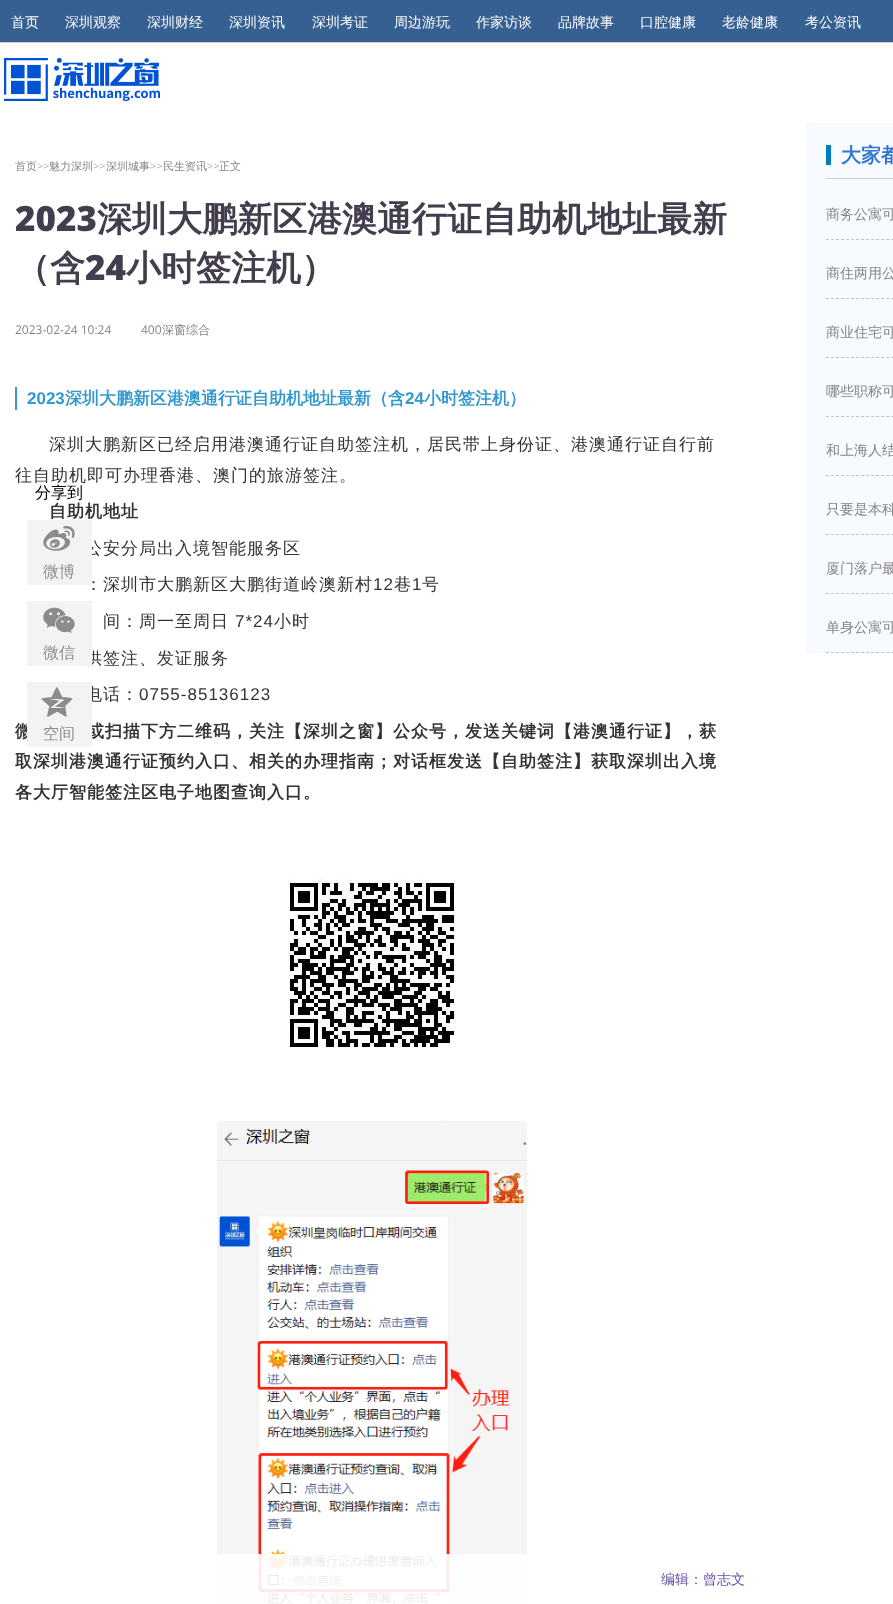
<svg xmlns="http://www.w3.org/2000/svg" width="893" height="1604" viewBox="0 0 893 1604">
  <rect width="100%" height="100%" fill="rgb(255,255,255)"/>
  <rect x="0" y="0" width="893" height="42" fill="rgb(54,96,146)"/>
  <rect x="0" y="42" width="893" height="1" fill="rgb(206,206,206)"/>
  <g font-family="WenQuanYi Zen Hei" font-size="14" font-weight="500" fill="rgb(255,255,255)">
    <text x="11" y="27">首页</text>
    <text x="65" y="27">深圳观察</text>
    <text x="147" y="27">深圳财经</text>
    <text x="229" y="27">深圳资讯</text>
    <text x="312" y="27">深圳考证</text>
    <text x="394" y="27">周边游玩</text>
    <text x="476" y="27">作家访谈</text>
    <text x="558" y="27">品牌故事</text>
    <text x="640" y="27">口腔健康</text>
    <text x="722" y="27">老龄健康</text>
    <text x="805" y="27">考公资讯</text>
  </g>
  <image x="4" y="58" width="156" height="43" href="pic1.png"/>
  <text x="15" y="170" font-family="WenQuanYi Zen Hei" font-size="11" font-weight="500" fill="rgb(132,132,132)">首页</text>
  <text x="37" y="170" font-family="Open Sans" font-size="11" font-weight="300" fill="rgb(132,132,132)">&gt;&gt;</text>
  <text x="49" y="170" font-family="WenQuanYi Zen Hei" font-size="11" font-weight="500" fill="rgb(132,132,132)">魅力深圳</text>
  <text x="93" y="170" font-family="Open Sans" font-size="11" font-weight="300" fill="rgb(132,132,132)">&gt;&gt;</text>
  <text x="106" y="170" font-family="WenQuanYi Zen Hei" font-size="11" font-weight="500" fill="rgb(132,132,132)">深圳城事</text>
  <text x="150" y="170" font-family="Open Sans" font-size="11" font-weight="300" fill="rgb(132,132,132)">&gt;&gt;</text>
  <text x="163" y="170" font-family="WenQuanYi Zen Hei" font-size="11" font-weight="500" fill="rgb(132,132,132)">民生资讯</text>
  <text x="207" y="170" font-family="Open Sans" font-size="11" font-weight="300" fill="rgb(132,132,132)">&gt;&gt;</text>
  <text x="219" y="170" font-family="WenQuanYi Zen Hei" font-size="11" font-weight="500" fill="rgb(132,132,132)">正文</text>
  <text x="15" y="231" font-family="Open Sans" font-size="35" font-weight="800" fill="rgb(67,61,77)">2023</text>
  <g font-family="WenQuanYi Zen Hei" font-size="35" font-weight="bold" fill="rgb(67,61,77)">
    <text x="97" y="231">深圳大鹏新区港澳通行证自助机地址最新</text>
    <text x="15" y="280">（含</text>
  </g>
  <text x="85" y="280" font-family="Open Sans" font-size="35" font-weight="800" fill="rgb(67,61,77)">24</text>
  <text x="126" y="280" font-family="WenQuanYi Zen Hei" font-size="35" font-weight="bold" fill="rgb(67,61,77)">小时签注机）</text>
  <g font-family="Open Sans" font-size="12" fill="rgb(132,132,132)">
    <text x="15" y="334">2023-02-24 10:24</text>
    <text x="141" y="334">400</text>
  </g>
  <text x="162" y="334" font-family="WenQuanYi Zen Hei" font-size="12" font-weight="500" fill="rgb(132,132,132)">深窗综合</text>
  <rect x="15" y="387" width="2" height="23" fill="rgb(51,153,204)"/>
  <text x="27" y="404" font-family="Liberation Sans" font-size="17" font-weight="bold" fill="rgb(51,153,204)">2023</text>
  <text x="65" y="404" font-family="WenQuanYi Zen Hei" font-size="17" font-weight="bold" fill="rgb(51,153,204)">深圳大鹏新区港澳通行证自助机地址最新（含</text>
  <text x="405" y="404" font-family="Liberation Sans" font-size="17" font-weight="bold" fill="rgb(51,153,204)">24</text>
  <text x="424" y="404" font-family="WenQuanYi Zen Hei" font-size="17" font-weight="bold" fill="rgb(51,153,204)">小时签注机）</text>
  <g font-family="WenQuanYi Zen Hei" font-size="17" font-weight="500" letter-spacing="1" fill="rgb(51,51,51)">
    <text x="49" y="450">深圳大鹏新区已经启用港澳通行证自助签注机，居民带上身份证、港澳通行证自行前</text>
    <text x="15" y="481">往自助机即可办理香港、澳门的旅游签注。</text>
  </g>
  <text x="49" y="517" font-family="WenQuanYi Zen Hei" font-size="17" font-weight="bold" letter-spacing="1" fill="rgb(51,51,51)">自助机地址</text>
  <g font-family="WenQuanYi Zen Hei" font-size="17" font-weight="500" letter-spacing="1" fill="rgb(51,51,51)">
    <text x="85" y="554">公安分局出入境智能服务区</text>
    <text x="85" y="590">：深圳市大鹏新区大鹏街道岭澳新村</text>
  </g>
  <text x="373" y="590" font-family="Liberation Sans" font-size="17" letter-spacing="1" fill="rgb(51,51,51)">12</text>
  <text x="394" y="590" font-family="WenQuanYi Zen Hei" font-size="17" font-weight="500" letter-spacing="1" fill="rgb(51,51,51)">巷</text>
  <text x="412" y="590" font-family="Liberation Sans" font-size="17" letter-spacing="1" fill="rgb(51,51,51)">1</text>
  <g font-family="WenQuanYi Zen Hei" font-size="17" font-weight="500" letter-spacing="1" fill="rgb(51,51,51)">
    <text x="422" y="590">号</text>
    <text x="103" y="627">间：周一至周日</text>
  </g>
  <text x="235" y="627" font-family="Liberation Sans" font-size="17" letter-spacing="1" fill="rgb(51,51,51)">7*24</text>
  <g font-family="WenQuanYi Zen Hei" font-size="17" font-weight="500" letter-spacing="1" fill="rgb(51,51,51)">
    <text x="274" y="627">小时</text>
    <text x="85" y="664">供签注、发证服务</text>
    <text x="85" y="700">电话：</text>
  </g>
  <text x="139" y="700" font-family="Liberation Sans" font-size="17" letter-spacing="1" fill="rgb(51,51,51)">0755-85136123</text>
  <g font-family="WenQuanYi Zen Hei" font-size="17" font-weight="bold" letter-spacing="1" fill="rgb(51,51,51)">
    <text x="15" y="737">微</text>
    <text x="87" y="737">或扫描下方二维码，关注【深圳之窗】公众号，发送关键词【港澳通行证】，获</text>
    <text>
      <tspan x="15" y="767">取深圳港澳通行证预约入口、相关的办理指南；对话框发送【自助签注】获取深圳出入境</tspan>
      <tspan x="15" y="798">各大厅智能签注区电子地图查询入口。</tspan>
    </text>
  </g>
  <image x="288" y="879" width="168" height="168" href="pic2.png"/>
  <image x="217" y="1121" width="310" height="483" href="pic3.png"/>
  <text x="35" y="498" font-family="WenQuanYi Zen Hei" font-size="16" font-weight="500" fill="rgb(0,0,0)">分享到</text>
  <rect x="27" y="520" width="65" height="65" fill="rgb(243,243,243)"/>
  <image x="43" y="526" width="32" height="25" href="pic4.png"/>
  <text x="43" y="577" font-family="WenQuanYi Zen Hei" font-size="16" font-weight="500" fill="rgb(141,141,141)">微博</text>
  <rect x="27" y="601" width="65" height="65" fill="rgb(243,243,243)"/>
  <image x="43" y="607" width="32" height="27" href="pic5.png"/>
  <text x="43" y="658" font-family="WenQuanYi Zen Hei" font-size="16" font-weight="500" fill="rgb(141,141,141)">微信</text>
  <rect x="27" y="682" width="65" height="65" fill="rgb(243,243,243)"/>
  <image x="41" y="687" width="32" height="30" href="pic6.png"/>
  <text x="43" y="739" font-family="WenQuanYi Zen Hei" font-size="16" font-weight="500" fill="rgb(141,141,141)">空间</text>
  <rect x="217" y="1554" width="310" height="50" fill="rgba(255,255,255,0.9)"/>
  <text x="661" y="1584" font-family="WenQuanYi Zen Hei" font-size="14" font-weight="500" fill="rgb(103,81,164)">编辑：曾志文</text>
  <rect x="806" y="123" width="87" height="530" fill="rgb(247,250,255)"/>
  <rect x="826" y="178" width="67" height="1" fill="rgb(204,204,204)"/>
  <rect x="826" y="145" width="5" height="20" fill="rgb(0,124,195)"/>
  <text x="841" y="162" font-family="WenQuanYi Zen Hei" font-size="20" font-weight="bold" fill="rgb(47,118,208)">大家都</text>
  <path d="M826 239.5H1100" fill="none" stroke="rgb(194,194,194)" stroke-dasharray="3 2.02"/>
  <text x="826" y="219" font-family="WenQuanYi Zen Hei" font-size="14" font-weight="500" fill="rgb(132,132,132)">商务公寓可</text>
  <path d="M826 298.5H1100" fill="none" stroke="rgb(194,194,194)" stroke-dasharray="3 2.02"/>
  <text x="826" y="278" font-family="WenQuanYi Zen Hei" font-size="14" font-weight="500" fill="rgb(132,132,132)">商住两用公</text>
  <path d="M826 357.5H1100" fill="none" stroke="rgb(194,194,194)" stroke-dasharray="3 2.02"/>
  <text x="826" y="337" font-family="WenQuanYi Zen Hei" font-size="14" font-weight="500" fill="rgb(132,132,132)">商业住宅可</text>
  <path d="M826 416.5H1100" fill="none" stroke="rgb(194,194,194)" stroke-dasharray="3 2.02"/>
  <text x="826" y="396" font-family="WenQuanYi Zen Hei" font-size="14" font-weight="500" fill="rgb(132,132,132)">哪些职称可</text>
  <path d="M826 475.5H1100" fill="none" stroke="rgb(194,194,194)" stroke-dasharray="3 2.02"/>
  <text x="826" y="455" font-family="WenQuanYi Zen Hei" font-size="14" font-weight="500" fill="rgb(132,132,132)">和上海人结</text>
  <path d="M826 534.5H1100" fill="none" stroke="rgb(194,194,194)" stroke-dasharray="3 2.02"/>
  <text x="826" y="514" font-family="WenQuanYi Zen Hei" font-size="14" font-weight="500" fill="rgb(132,132,132)">只要是本科</text>
  <path d="M826 593.5H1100" fill="none" stroke="rgb(194,194,194)" stroke-dasharray="3 2.02"/>
  <text x="826" y="573" font-family="WenQuanYi Zen Hei" font-size="14" font-weight="500" fill="rgb(132,132,132)">厦门落户最</text>
  <path d="M826 652.5H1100" fill="none" stroke="rgb(194,194,194)" stroke-dasharray="3 2.02"/>
  <text x="826" y="632" font-family="WenQuanYi Zen Hei" font-size="14" font-weight="500" fill="rgb(132,132,132)">单身公寓可</text>
</svg>
